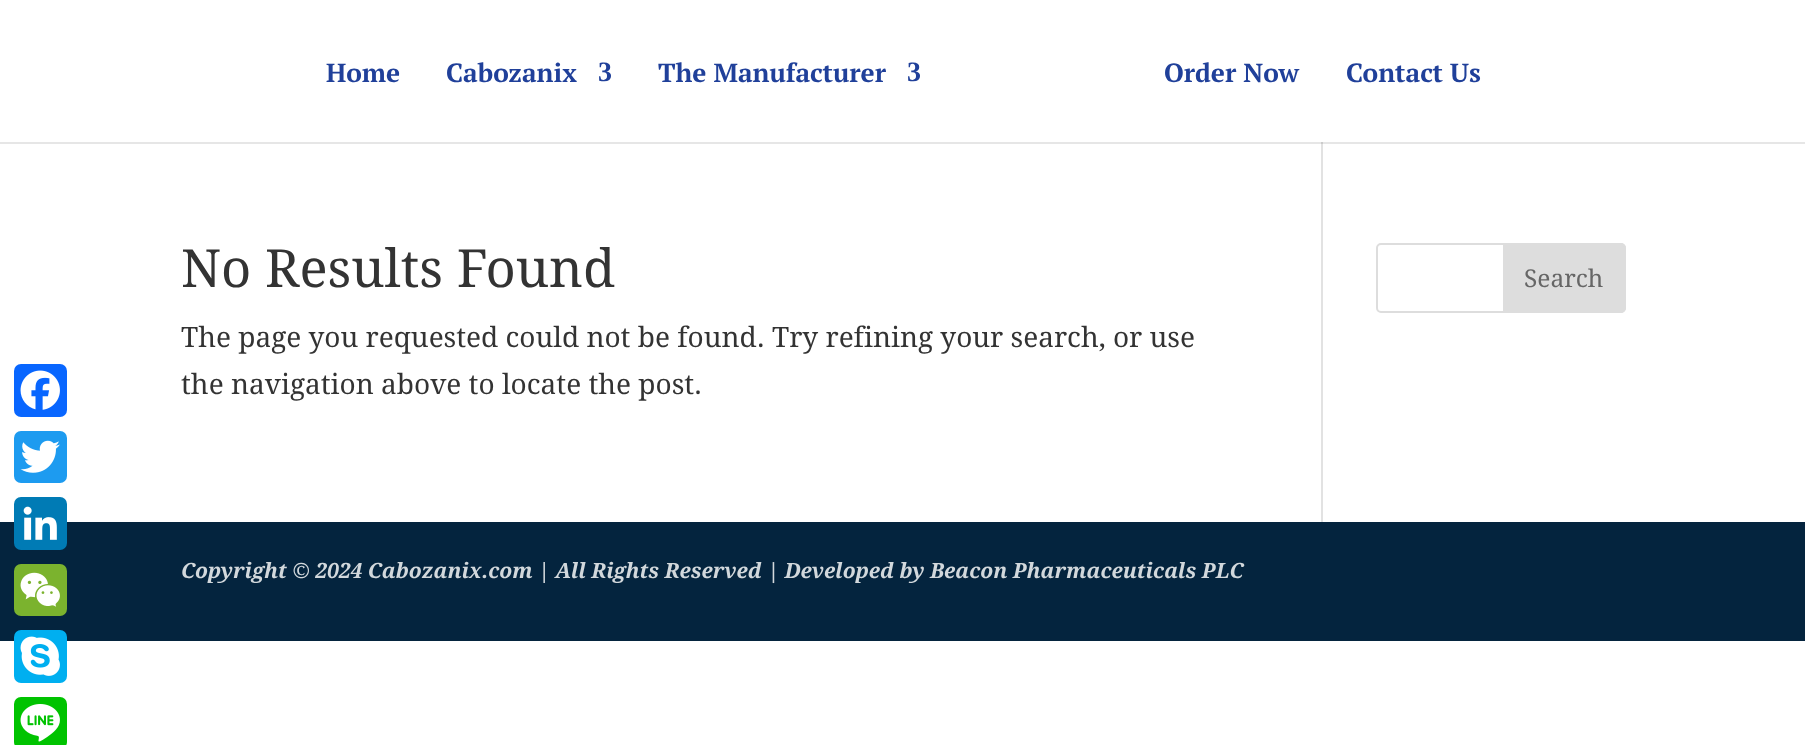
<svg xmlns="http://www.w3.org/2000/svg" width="1805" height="745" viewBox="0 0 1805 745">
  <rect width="100%" height="100%" fill="rgb(255,255,255)"/>
  <rect x="0" y="142" width="1805" height="2" fill="rgb(230,230,230)"/>
  <rect x="14" y="364" width="53" height="53" rx="7" fill="rgb(8,102,255)"/>
  <image x="20" y="370" width="40" height="40" href="pic1.png"/>
  <rect x="14" y="431" width="53" height="52" rx="7" fill="rgb(29,155,240)"/>
  <image x="20" y="440" width="40" height="33" href="pic2.png"/>
  <rect x="0" y="522" width="1805" height="119" fill="rgb(4,36,62)"/>
  <rect x="14" y="497" width="53" height="53" rx="7" fill="rgb(0,123,181)"/>
  <image x="23" y="506" width="34" height="34" href="pic3.png"/>
  <rect x="14" y="564" width="53" height="52" rx="7" fill="rgb(123,179,46)"/>
  <image x="20" y="572" width="40" height="35" href="pic4.png"/>
  <rect x="14" y="630" width="53" height="53" rx="7" fill="rgb(0,175,240)"/>
  <image x="20" y="636" width="40" height="40" href="pic5.png"/>
  <rect x="14" y="697" width="53" height="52" rx="7" fill="rgb(0,195,0)"/>
  <image x="20" y="704" width="40" height="38" href="pic6.png"/>
  <g font-family="PT Serif" font-size="26.25" font-weight="bold" fill="rgb(32,64,154)">
    <text x="326" y="82">Home</text>
    <text x="446" y="82">Cabozanix</text>
  </g>
  <text x="598" y="81" font-family="Liberation Serif" font-size="28" font-weight="bold" fill="rgb(32,64,154)">3</text>
  <text x="658" y="82" font-family="PT Serif" font-size="26.25" font-weight="bold" fill="rgb(32,64,154)">The Manufacturer</text>
  <text x="907" y="81" font-family="Liberation Serif" font-size="28" font-weight="bold" fill="rgb(32,64,154)">3</text>
  <g font-family="PT Serif" font-size="26.25" font-weight="bold" fill="rgb(32,64,154)">
    <text x="1164" y="82">Order Now</text>
    <text x="1346" y="82">Contact Us</text>
  </g>
  <rect x="1321" y="142" width="2" height="380" fill="rgb(226,226,226)"/>
  <rect x="1321" y="142" width="2" height="2" fill="rgb(203,203,203)"/>
  <text x="181" y="287" font-family="Droid Serif" font-size="52.5" fill="rgb(51,51,51)">No Results Found</text>
  <g font-family="Droid Serif" font-size="28" fill="rgb(51,51,51)">
    <text>
      <tspan x="181" y="347">The page you requested could not be found. Try refining your search, or use</tspan>
      <tspan x="181" y="394">the navigation above to locate the post.</tspan>
    </text>
  </g>
  <rect x="1377" y="244" width="248" height="68" rx="4" fill="none" stroke="rgb(221,221,221)" stroke-width="2"/>
  <path d="M1504 244H1621C1623 244 1625 246 1625 248V308C1625 310 1623 312 1621 312H1504Z" fill="rgb(221,221,221)" stroke="rgb(221,221,221)" stroke-width="2"/>
  <text x="1524" y="287" font-family="Droid Serif" font-size="24.5" fill="rgb(102,102,102)">Search</text>
  <text x="181" y="578" font-family="Droid Serif" font-size="21" font-weight="bold" font-style="italic" fill="rgb(210,216,220)">Copyright © 2024 Cabozanix.com | All Rights Reserved | Developed by Beacon Pharmaceuticals PLC</text>
</svg>
